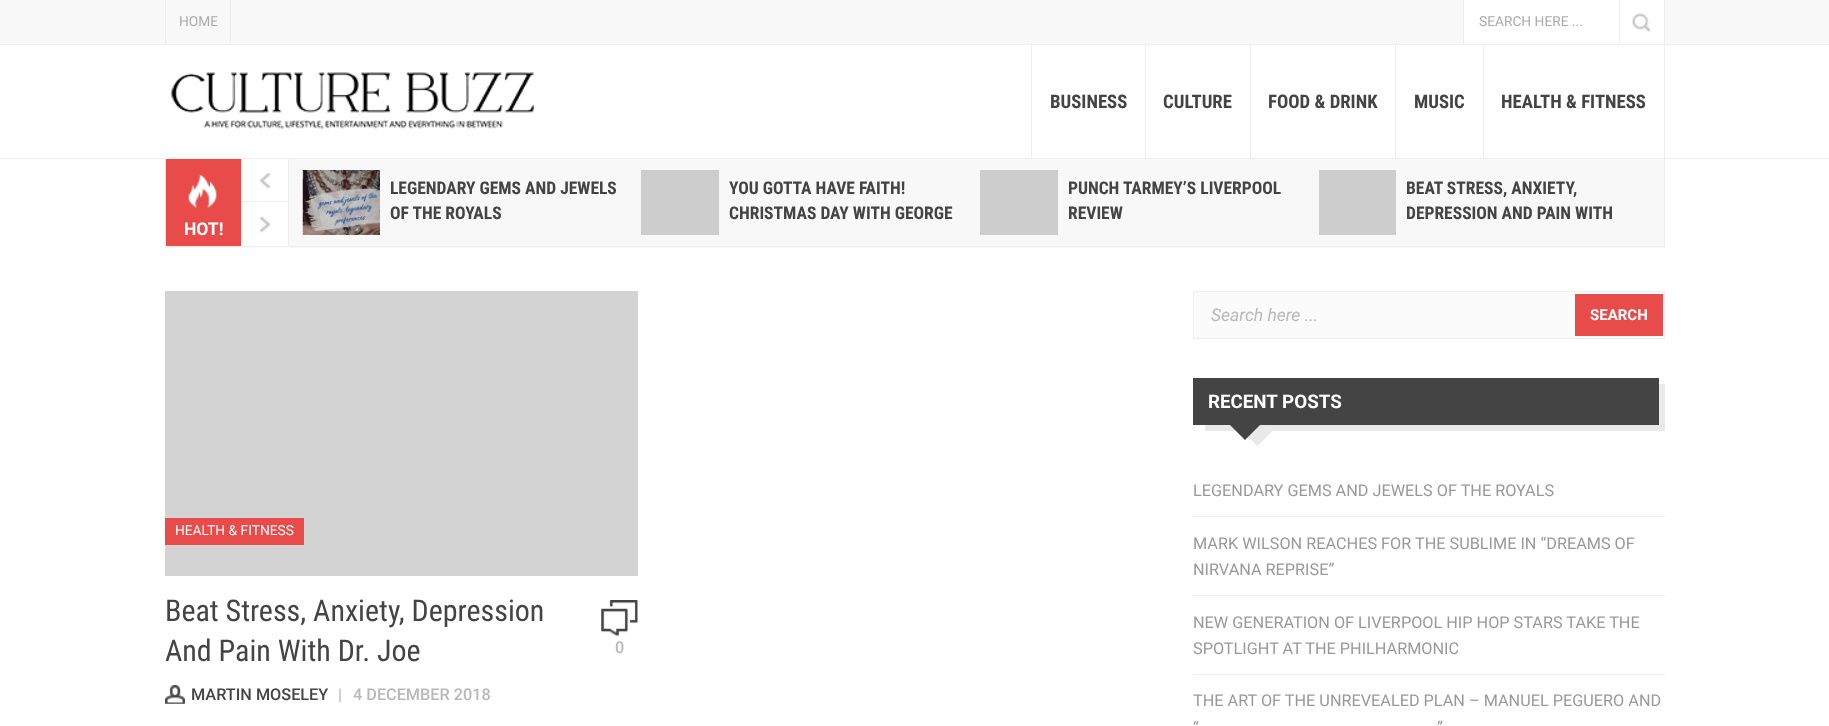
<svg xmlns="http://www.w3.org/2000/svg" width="1829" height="726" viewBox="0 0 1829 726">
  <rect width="100%" height="100%" fill="rgb(255,255,255)"/>
  <rect x="0" y="0" width="1829" height="44" fill="rgb(248,248,248)"/>
  <rect x="0" y="44" width="1829" height="1" fill="rgb(238,238,238)"/>
  <rect x="230" y="0" width="1" height="44" fill="rgb(238,238,238)"/>
  <rect x="165" y="0" width="1" height="44" fill="rgb(238,238,238)"/>
  <text x="179" y="26" font-family="Roboto" font-size="13.75" fill="rgb(170,170,170)">HOME</text>
  <rect x="1464" y="0" width="200" height="44" fill="rgb(255,255,255)"/>
  <rect x="1664" y="0" width="1" height="44" fill="rgb(238,238,238)"/>
  <rect x="1463" y="0" width="1" height="44" fill="rgb(238,238,238)"/>
  <rect x="1619" y="0" width="1" height="44" fill="rgb(238,238,238)"/>
  <text x="1479" y="26" font-family="Roboto" font-size="13.75" fill="rgb(170,170,170)">SEARCH HERE ...</text>
  <image x="1632" y="13" width="19" height="19" href="pic1.png"/>
  <rect x="0" y="158" width="1829" height="1" fill="rgb(238,238,238)"/>
  <image x="171" y="72" width="363" height="57" href="pic2.png"/>
  <rect x="1031" y="45" width="1" height="113" fill="rgb(238,238,238)"/>
  <text x="1050" y="108" font-family="Roboto Condensed" font-size="18.75" font-weight="bold" fill="rgb(68,68,68)">BUSINESS</text>
  <rect x="1145" y="45" width="1" height="113" fill="rgb(238,238,238)"/>
  <text x="1163" y="108" font-family="Roboto Condensed" font-size="18.75" font-weight="bold" fill="rgb(68,68,68)">CULTURE</text>
  <rect x="1250" y="45" width="1" height="113" fill="rgb(238,238,238)"/>
  <text x="1268" y="108" font-family="Roboto Condensed" font-size="18.75" font-weight="bold" fill="rgb(68,68,68)">FOOD &amp; DRINK</text>
  <rect x="1395" y="45" width="1" height="113" fill="rgb(238,238,238)"/>
  <text x="1414" y="108" font-family="Roboto Condensed" font-size="18.75" font-weight="bold" fill="rgb(68,68,68)">MUSIC</text>
  <rect x="1664" y="45" width="1" height="113" fill="rgb(238,238,238)"/>
  <rect x="1483" y="45" width="1" height="113" fill="rgb(238,238,238)"/>
  <text x="1501" y="108" font-family="Roboto Condensed" font-size="18.75" font-weight="bold" fill="rgb(68,68,68)">HEALTH &amp; FITNESS</text>
  <rect x="166" y="159" width="1498" height="89" fill="rgb(248,248,248)"/>
  <rect x="1664" y="159" width="1" height="89" fill="rgb(238,238,238)"/>
  <rect x="165" y="246" width="1500" height="1" fill="rgb(238,238,238)"/>
  <rect x="165" y="159" width="1" height="89" fill="rgb(238,238,238)"/>
  <rect x="242" y="159" width="46" height="42" fill="rgb(255,255,255)"/>
  <image x="260" y="172" width="11" height="17" href="pic3.png"/>
  <rect x="288" y="158" width="1" height="45" fill="rgb(238,238,238)"/>
  <rect x="241" y="158" width="1" height="45" fill="rgb(238,238,238)"/>
  <rect x="242" y="202" width="46" height="44" fill="rgb(255,255,255)"/>
  <image x="260" y="216" width="11" height="17" href="pic4.png"/>
  <rect x="241" y="201" width="48" height="1" fill="rgb(238,238,238)"/>
  <rect x="288" y="201" width="1" height="45" fill="rgb(238,238,238)"/>
  <rect x="241" y="201" width="1" height="45" fill="rgb(238,238,238)"/>
  <image x="302" y="170" width="78" height="65" href="pic5.png"/>
  <g font-family="Roboto Condensed" font-size="17.5" font-weight="bold" fill="rgb(68,68,68)">
    <text>
      <tspan x="390" y="194">LEGENDARY GEMS AND JEWELS</tspan>
      <tspan x="390" y="219">OF THE ROYALS</tspan>
    </text>
  </g>
  <rect x="641" y="170" width="78" height="65" fill="rgb(205,205,205)"/>
  <g font-family="Roboto Condensed" font-size="17.5" font-weight="bold" fill="rgb(68,68,68)">
    <text>
      <tspan x="729" y="194">YOU GOTTA HAVE FAITH!</tspan>
      <tspan x="729" y="219">CHRISTMAS DAY WITH GEORGE</tspan>
    </text>
  </g>
  <rect x="980" y="170" width="78" height="65" fill="rgb(205,205,205)"/>
  <g font-family="Roboto Condensed" font-size="17.5" font-weight="bold" fill="rgb(68,68,68)">
    <text>
      <tspan x="1068" y="194">PUNCH TARMEY’S LIVERPOOL</tspan>
      <tspan x="1068" y="219">REVIEW</tspan>
    </text>
  </g>
  <rect x="1319" y="170" width="77" height="65" fill="rgb(205,205,205)"/>
  <g font-family="Roboto Condensed" font-size="17.5" font-weight="bold" fill="rgb(68,68,68)">
    <text>
      <tspan x="1406" y="194">BEAT STRESS, ANXIETY,</tspan>
      <tspan x="1406" y="219">DEPRESSION AND PAIN WITH</tspan>
    </text>
  </g>
  <rect x="166" y="159" width="75" height="87" fill="rgb(233,75,75)"/>
  <image x="188" y="174" width="29" height="34" href="pic6.png"/>
  <text x="184" y="235" font-family="Roboto" font-size="17.5" font-weight="bold" fill="rgb(255,255,255)">HOT!</text>
  <rect x="165" y="291" width="473" height="285" fill="rgb(211,211,211)"/>
  <rect x="165" y="518" width="139" height="27" fill="rgb(233,75,75)"/>
  <text x="175" y="535" font-family="Roboto" font-size="13.75" fill="rgb(255,255,255)">HEALTH &amp; FITNESS</text>
  <g font-family="Roboto Condensed" font-size="30" fill="rgb(68,68,68)">
    <text>
      <tspan x="165" y="621">Beat Stress, Anxiety, Depression</tspan>
      <tspan x="165" y="661">And Pain With Dr. Joe</tspan>
    </text>
  </g>
  <image x="601" y="600" width="37" height="37" href="pic7.png"/>
  <text x="615" y="653" font-family="Roboto" font-size="16.25" font-weight="500" fill="rgb(185,185,185)">0</text>
  <image x="165" y="685" width="20" height="19" href="pic8.png"/>
  <text x="191" y="700" font-family="Roboto" font-size="16.25" font-weight="500" fill="rgb(68,68,68)">MARTIN MOSELEY</text>
  <g font-family="Roboto" font-size="16.25" font-weight="500" fill="rgb(185,185,185)">
    <text x="338" y="700">|</text>
    <text x="353" y="700">4 DECEMBER 2018</text>
  </g>
  <rect x="1193.5" y="291.5" width="471" height="47" fill="rgb(251,251,251)" stroke="rgb(238,238,238)"/>
  <text x="1211" y="321" font-family="Roboto" font-size="17.5" font-style="italic" fill="rgb(185,185,185)">Search here ...</text>
  <rect x="1575" y="294" width="88" height="42" fill="rgb(233,75,75)"/>
  <text x="1590" y="320" font-family="Roboto" font-size="15" font-weight="bold" fill="rgb(255,255,255)">SEARCH</text>
  <rect x="1205" y="384" width="460" height="47" fill="rgb(233,233,233)"/>
  <path d="M1242.5 431H1272.5L1257.5 446Z" fill="rgb(233,233,233)"/>
  <rect x="1193" y="378" width="466" height="47" fill="rgb(68,68,68)"/>
  <text x="1208" y="408" font-family="Roboto" font-size="18.75" font-weight="bold" fill="rgb(255,255,255)">RECENT POSTS</text>
  <path d="M1230 425H1260L1245 440Z" fill="rgb(68,68,68)"/>
  <rect x="1193" y="516" width="472" height="1" fill="rgb(238,238,238)"/>
  <text x="1193" y="496" font-family="Roboto" font-size="16.25" fill="rgb(153,153,153)">LEGENDARY GEMS AND JEWELS OF THE ROYALS</text>
  <rect x="1193" y="595" width="472" height="1" fill="rgb(238,238,238)"/>
  <g font-family="Roboto" font-size="16.25" fill="rgb(153,153,153)">
    <text>
      <tspan x="1193" y="549">MARK WILSON REACHES FOR THE SUBLIME IN “DREAMS OF</tspan>
      <tspan x="1193" y="575">NIRVANA REPRISE”</tspan>
    </text>
  </g>
  <rect x="1193" y="674" width="472" height="1" fill="rgb(238,238,238)"/>
  <g font-family="Roboto" font-size="16.25" fill="rgb(153,153,153)">
    <text>
      <tspan x="1193" y="628">NEW GENERATION OF LIVERPOOL HIP HOP STARS TAKE THE</tspan>
      <tspan x="1193" y="654">SPOTLIGHT AT THE PHILHARMONIC</tspan>
    </text>
    <text>
      <tspan x="1193" y="706">THE ART OF THE UNREVEALED PLAN – MANUEL PEGUERO AND</tspan>
      <tspan x="1193" y="733">“</tspan>
    </text>
    <text x="1437" y="733">”</text>
  </g>
</svg>
